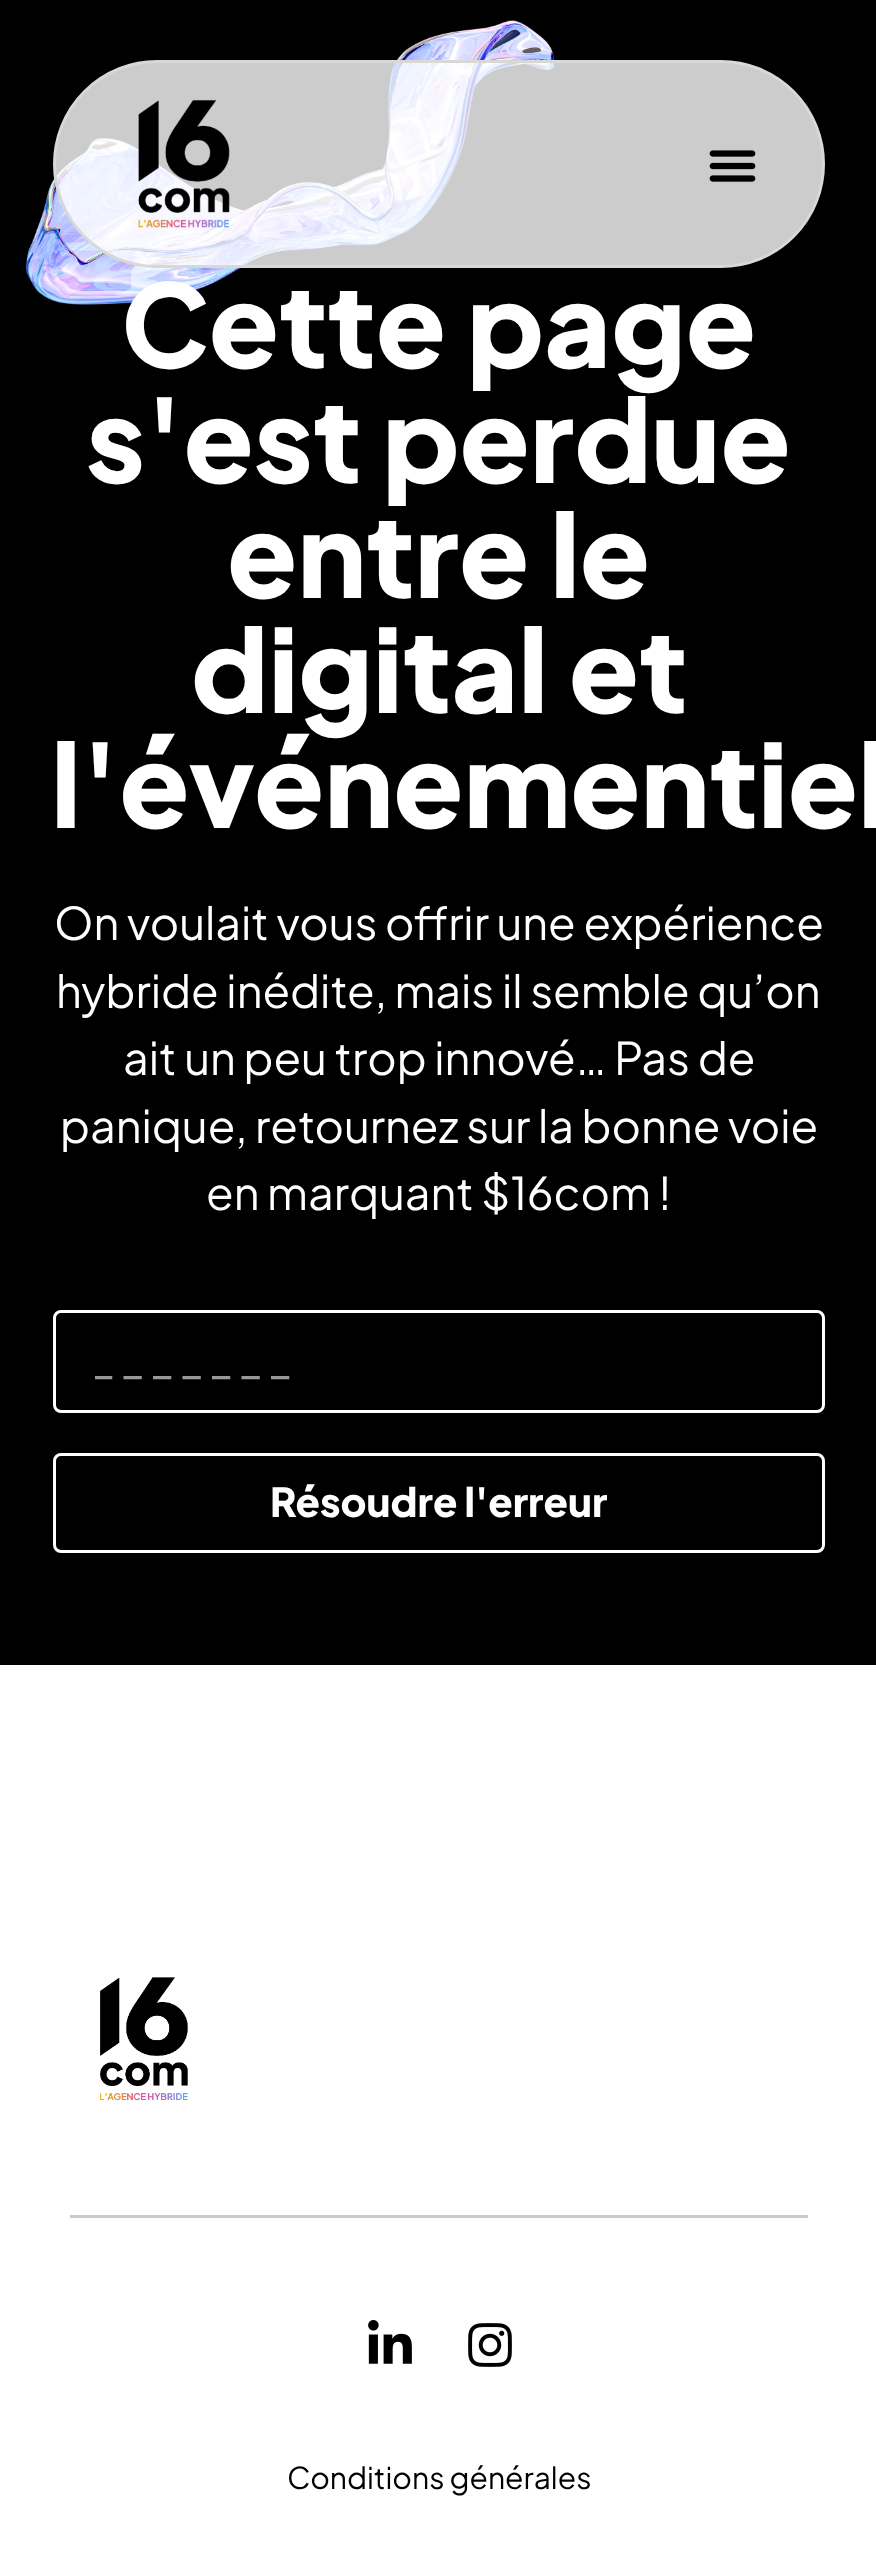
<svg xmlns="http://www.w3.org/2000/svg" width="876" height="2569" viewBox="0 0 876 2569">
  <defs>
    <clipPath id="clip1"><rect x="95" y="1335" width="688" height="50"/></clipPath>
  </defs>
  <rect width="100%" height="100%" fill="rgb(255,255,255)"/>
  <rect x="0" y="0" width="876" height="1665" fill="rgb(0,0,0)"/>
  <image x="26" y="20" width="528" height="285" href="pic3.png"/>
  <rect x="54.5" y="61.5" width="769" height="205" rx="102.5" fill="rgba(255,255,255,0.8)" stroke="rgb(216,216,216)" stroke-width="3"/>
  <image x="138" y="100" width="92" height="128" href="pic1.png"/>
  <image x="709" y="150" width="47" height="32" href="pic2.png"/>
  <g font-family="Plus Jakarta Sans" font-size="115" font-weight="800" fill="rgb(255,255,255)">
    <text x="121" y="368">Cette page</text>
    <text x="86" y="483">s'est perdue</text>
    <text x="227" y="598">entre le</text>
    <text x="191" y="713">digital et</text>
    <text x="51" y="828">l'événementiel</text>
  </g>
  <g font-family="Plus Jakarta Sans" font-size="45" fill="rgb(255,255,255)">
    <text x="54" y="940">On voulait vous offrir une expérience</text>
    <text x="56" y="1008">hybride inédite, mais il semble qu’on</text>
    <text x="123" y="1075">ait un peu trop innové… Pas de</text>
    <text x="60" y="1143">panique, retournez sur la bonne voie</text>
    <text x="206" y="1210">en marquant $16com !</text>
  </g>
  <rect x="54.5" y="1311.5" width="769" height="100" rx="6.5" fill="none" stroke="rgb(255,255,255)" stroke-width="3"/>
  <g clip-path="url(#clip1)">
    <text x="94" y="1376" font-family="Inter" font-size="40" fill="rgb(153,153,153)">_ _ _ _ _ _ _</text>
  </g>
  <rect x="54.5" y="1454.5" width="769" height="97" rx="6.5" fill="none" stroke="rgb(255,255,255)" stroke-width="3"/>
  <text x="270" y="1517" font-family="Plus Jakarta Sans" font-size="40" font-weight="800" fill="rgb(255,255,255)">Résoudre l'erreur</text>
  <image x="99" y="1977" width="89" height="124" href="pic4.png"/>
  <rect x="70" y="2215" width="738" height="3" fill="rgb(202,203,207)"/>
  <image x="368" y="2320" width="44" height="44" href="pic5.png"/>
  <image x="468" y="2323" width="44" height="44" href="pic6.png"/>
  <text x="287" y="2489" font-family="Plus Jakarta Sans" font-size="30" fill="rgb(0,0,0)">Conditions générales</text>
</svg>
